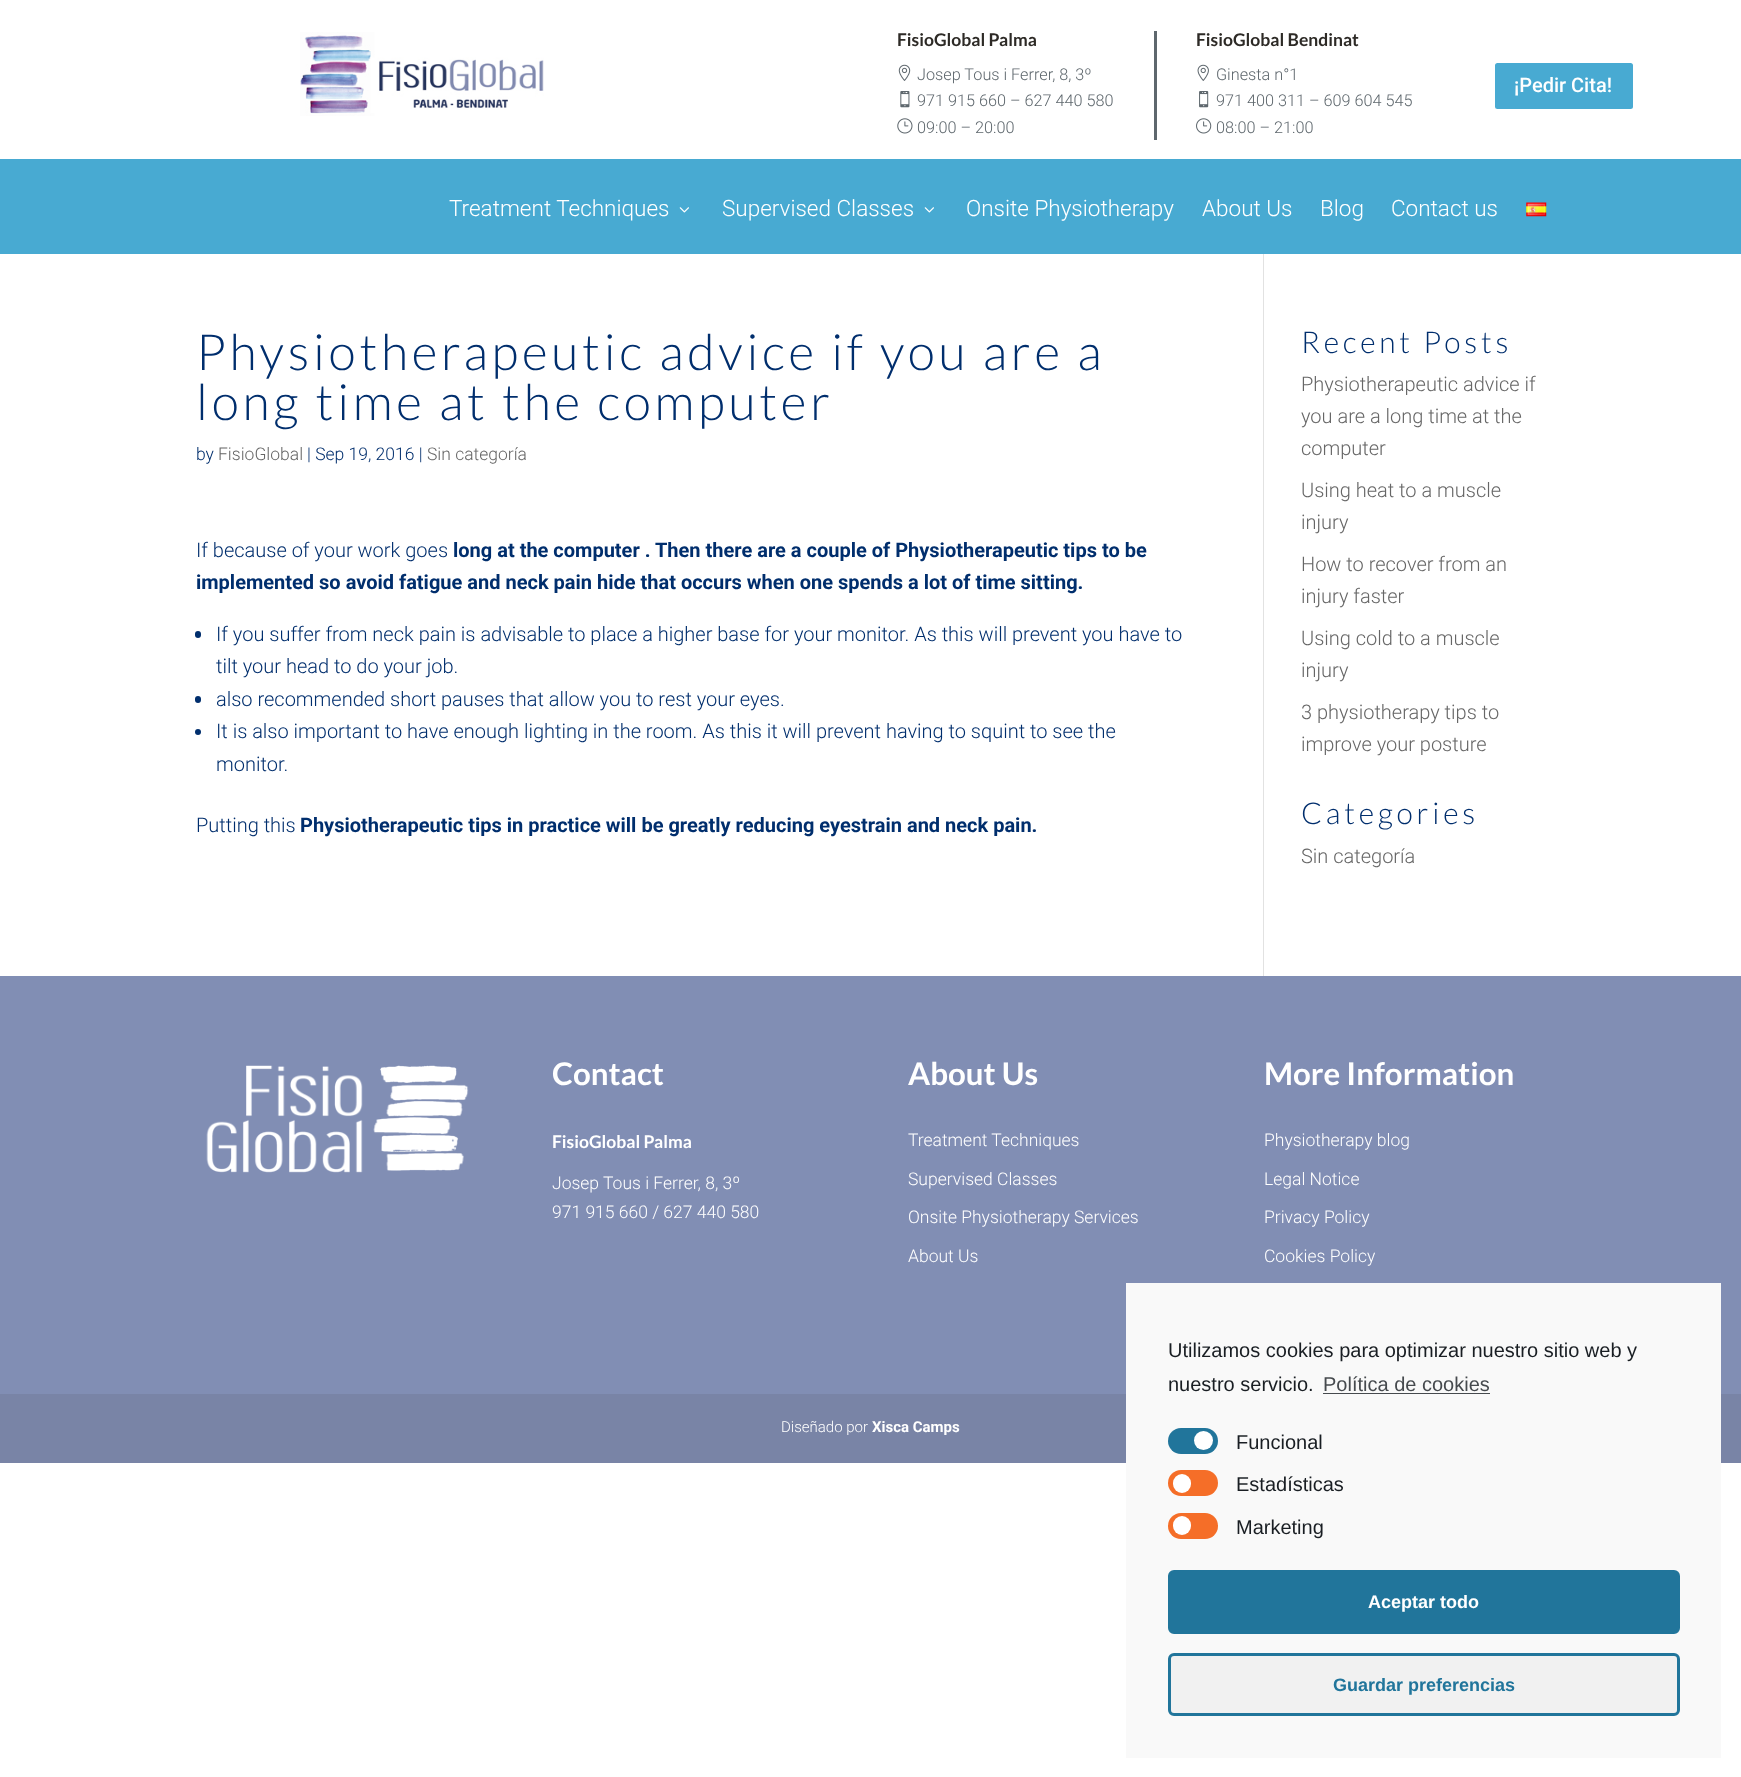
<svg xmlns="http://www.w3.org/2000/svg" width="1741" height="1777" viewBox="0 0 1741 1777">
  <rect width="100%" height="100%" fill="rgb(255,255,255)"/>
  <image x="300" y="32" width="244" height="84" href="pic1.png"/>
  <rect x="1154" y="31" width="3" height="109" fill="rgb(94,103,109)"/>
  <text x="897" y="46" font-family="Lato" font-size="17.5" font-weight="bold" fill="rgb(45,42,38)">FisioGlobal Palma</text>
  <image x="898" y="64" width="13" height="17" href="pic2.png"/>
  <text x="917" y="80" font-family="Roboto" font-size="16.25" font-weight="300" fill="rgb(94,103,109)">Josep Tous i Ferrer, 8, 3º</text>
  <image x="900" y="91" width="10" height="17" href="pic3.png"/>
  <text x="917" y="106" font-family="Roboto" font-size="16.25" font-weight="300" fill="rgb(94,103,109)">971 915 660 – 627 440 580</text>
  <image x="897" y="118" width="16" height="16" href="pic4.png"/>
  <text x="917" y="133" font-family="Roboto" font-size="16.25" font-weight="300" fill="rgb(94,103,109)">09:00 – 20:00</text>
  <text x="1196" y="46" font-family="Lato" font-size="17.5" font-weight="bold" fill="rgb(45,42,38)">FisioGlobal Bendinat</text>
  <image x="1197" y="64" width="12" height="17" href="pic5.png"/>
  <text x="1216" y="80" font-family="Roboto" font-size="16.25" font-weight="300" fill="rgb(94,103,109)">Ginesta n°1</text>
  <image x="1199" y="91" width="10" height="17" href="pic6.png"/>
  <text x="1216" y="106" font-family="Roboto" font-size="16.25" font-weight="300" fill="rgb(94,103,109)">971 400 311 – 609 604 545</text>
  <image x="1196" y="118" width="16" height="16" href="pic7.png"/>
  <text x="1216" y="133" font-family="Roboto" font-size="16.25" font-weight="300" fill="rgb(94,103,109)">08:00 – 21:00</text>
  <rect x="1495" y="63" width="138" height="46" rx="2.5" fill="rgb(72,170,210)"/>
  <text x="1514" y="92" font-family="Roboto" font-size="20" font-weight="500" fill="rgb(255,255,255)">¡Pedir Cita!</text>
  <rect x="0" y="159" width="1741" height="95" fill="rgb(72,170,210)"/>
  <text x="449" y="216" font-family="Roboto" font-size="22.5" font-weight="300" fill="rgb(255,255,255)">Treatment Techniques</text>
  <image x="679" y="207" width="10" height="6" href="pic8.png"/>
  <text x="722" y="216" font-family="Roboto" font-size="22.5" font-weight="300" fill="rgb(255,255,255)">Supervised Classes</text>
  <image x="924" y="207" width="10" height="6" href="pic8.png"/>
  <g font-family="Roboto" font-size="22.5" font-weight="300" fill="rgb(255,255,255)">
    <text x="966" y="216">Onsite Physiotherapy</text>
    <text x="1202" y="216">About Us</text>
    <text x="1320" y="216">Blog</text>
    <text x="1391" y="216">Contact us</text>
  </g>
  <image x="1526" y="202" width="21" height="15" href="pic9.png"/>
  <rect x="1263" y="254" width="1" height="722" fill="rgb(226,226,226)"/>
  <g font-family="Lato" font-size="50" font-weight="300" letter-spacing="3.75" fill="rgb(0,46,109)">
    <text>
      <tspan x="196" y="370">Physiotherapeutic advice if you are a</tspan>
      <tspan x="196" y="420">long time at the computer</tspan>
    </text>
  </g>
  <text x="196" y="460" font-family="Roboto" font-size="17.5" font-weight="300" fill="rgb(0,46,109)">by</text>
  <text x="218" y="460" font-family="Roboto" font-size="17.5" font-weight="300" fill="rgb(102,102,102)">FisioGlobal</text>
  <text x="307" y="460" font-family="Roboto" font-size="17.5" font-weight="300" fill="rgb(0,46,109)">| Sep 19, 2016 |</text>
  <text x="427" y="460" font-family="Roboto" font-size="17.5" font-weight="300" fill="rgb(102,102,102)">Sin categoría</text>
  <text x="196" y="557" font-family="Roboto" font-size="20" font-weight="300" fill="rgb(0,46,109)">If because of your work goes</text>
  <g font-family="Roboto" font-size="20" font-weight="bold" fill="rgb(0,46,109)">
    <text x="453" y="557">long at the computer . Then there are a couple of Physiotherapeutic tips to be</text>
    <text x="196" y="589">implemented so avoid fatigue and neck pain hide that occurs when one spends a lot of time sitting.</text>
  </g>
  <rect x="195" y="631" width="6" height="7" rx="3" fill="rgb(0,46,109)"/>
  <g font-family="Roboto" font-size="20" font-weight="300" fill="rgb(0,46,109)">
    <text>
      <tspan x="216" y="641">If you suffer from neck pain is advisable to place a higher base for your monitor. As this will prevent you have to</tspan>
      <tspan x="216" y="673">tilt your head to do your job.</tspan>
    </text>
  </g>
  <rect x="195" y="696" width="6" height="7" rx="3" fill="rgb(0,46,109)"/>
  <text x="216" y="706" font-family="Roboto" font-size="20" font-weight="300" fill="rgb(0,46,109)">also recommended short pauses that allow you to rest your eyes.</text>
  <circle cx="198" cy="732" r="3" fill="rgb(0,46,109)"/>
  <g font-family="Roboto" font-size="20" font-weight="300" fill="rgb(0,46,109)">
    <text>
      <tspan x="216" y="738">It is also important to have enough lighting in the room. As this it will prevent having to squint to see the</tspan>
      <tspan x="216" y="771">monitor.</tspan>
    </text>
    <text x="196" y="832">Putting this</text>
  </g>
  <text x="300" y="832" font-family="Roboto" font-size="20" font-weight="bold" fill="rgb(0,46,109)">Physiotherapeutic tips in practice will be greatly reducing eyestrain and neck pain.</text>
  <text x="1301" y="353" font-family="Lato" font-size="30" font-weight="300" letter-spacing="3.75" fill="rgb(0,46,109)">Recent Posts</text>
  <g font-family="Roboto" font-size="20" font-weight="300" fill="rgb(102,102,102)">
    <text>
      <tspan x="1301" y="391">Physiotherapeutic advice if</tspan>
      <tspan x="1301" y="423">you are a long time at the</tspan>
      <tspan x="1301" y="455">computer</tspan>
    </text>
    <text>
      <tspan x="1301" y="497">Using heat to a muscle</tspan>
      <tspan x="1301" y="529">injury</tspan>
    </text>
    <text>
      <tspan x="1301" y="571">How to recover from an</tspan>
      <tspan x="1301" y="603">injury faster</tspan>
    </text>
    <text>
      <tspan x="1301" y="645">Using cold to a muscle</tspan>
      <tspan x="1301" y="677">injury</tspan>
    </text>
    <text>
      <tspan x="1301" y="719">3 physiotherapy tips to</tspan>
      <tspan x="1301" y="751">improve your posture</tspan>
    </text>
  </g>
  <text x="1301" y="824" font-family="Lato" font-size="30" font-weight="300" letter-spacing="3.75" fill="rgb(0,46,109)">Categories</text>
  <text x="1301" y="863" font-family="Roboto" font-size="20" font-weight="300" fill="rgb(102,102,102)">Sin categoría</text>
  <rect x="0" y="976" width="1741" height="418" fill="rgb(129,142,180)"/>
  <image x="206" y="1065" width="263" height="108" href="pic10.png"/>
  <text x="552" y="1085" font-family="Lato" font-size="31.25" font-weight="bold" fill="rgb(255,255,255)">Contact</text>
  <text x="552" y="1148" font-family="Lato" font-size="17.5" font-weight="bold" fill="rgb(255,255,255)">FisioGlobal Palma</text>
  <g font-family="Roboto" font-size="17.5" font-weight="300" fill="rgb(255,255,255)">
    <text>
      <tspan x="552" y="1189">Josep Tous i Ferrer, 8, 3º</tspan>
      <tspan x="552" y="1218">971 915 660 / 627 440 580</tspan>
    </text>
  </g>
  <text x="908" y="1085" font-family="Lato" font-size="31.25" font-weight="bold" fill="rgb(255,255,255)">About Us</text>
  <g font-family="Roboto" font-size="17.5" font-weight="300" fill="rgb(255,255,255)">
    <text x="908" y="1146">Treatment Techniques</text>
    <text x="908" y="1185">Supervised Classes</text>
    <text x="908" y="1223">Onsite Physiotherapy Services</text>
    <text x="908" y="1262">About Us</text>
  </g>
  <text x="1264" y="1085" font-family="Lato" font-size="31.25" font-weight="bold" fill="rgb(255,255,255)">More Information</text>
  <g font-family="Roboto" font-size="17.5" font-weight="300" fill="rgb(255,255,255)">
    <text x="1264" y="1146">Physiotherapy blog</text>
    <text x="1264" y="1185">Legal Notice</text>
    <text x="1264" y="1223">Privacy Policy</text>
    <text x="1264" y="1262">Cookies Policy</text>
  </g>
  <rect x="0" y="1394" width="1741" height="69" fill="rgb(121,132,166)"/>
  <text x="781" y="1432" font-family="Roboto" font-size="15" font-weight="300" fill="rgb(255,255,255)">Diseñado por</text>
  <text x="872" y="1432" font-family="Roboto" font-size="15" font-weight="bold" fill="rgb(255,255,255)">Xisca Camps</text>
  <rect x="1126" y="1283" width="595" height="475" fill="rgb(249,249,249)"/>
  <g font-family="Liberation Sans" font-size="20" fill="rgb(25,30,35)">
    <text>
      <tspan x="1168" y="1357">Utilizamos cookies para optimizar nuestro sitio web y</tspan>
      <tspan x="1168" y="1391">nuestro servicio.</tspan>
    </text>
  </g>
  <text x="1323" y="1391" font-family="Liberation Sans" font-size="20" fill="rgb(70,74,78)">Política de cookies</text>
  <rect x="1323" y="1393" width="167" height="1" fill="rgb(70,74,78)"/>
  <rect x="1168" y="1428" width="50" height="26" rx="13" fill="rgb(33,117,155)"/>
  <circle cx="1203.5" cy="1440.5" r="9.5" fill="rgb(255,255,255)"/>
  <text x="1236" y="1449" font-family="Liberation Sans" font-size="20" fill="rgb(25,30,35)">Funcional</text>
  <rect x="1168" y="1470" width="50" height="26" rx="13" fill="rgb(245,110,40)"/>
  <rect x="1173" y="1474" width="18" height="19" rx="9" fill="rgb(255,255,255)"/>
  <text x="1236" y="1491" font-family="Liberation Sans" font-size="20" fill="rgb(25,30,35)">Estadísticas</text>
  <rect x="1168" y="1513" width="50" height="26" rx="13" fill="rgb(245,110,40)"/>
  <rect x="1173" y="1516" width="18" height="19" rx="9" fill="rgb(255,255,255)"/>
  <text x="1236" y="1534" font-family="Liberation Sans" font-size="20" fill="rgb(25,30,35)">Marketing</text>
  <rect x="1169.5" y="1571.5" width="509" height="61" rx="4.5" fill="rgb(33,117,155)" stroke="rgb(33,117,155)" stroke-width="3"/>
  <text x="1368" y="1608" font-family="Liberation Sans" font-size="18" font-weight="bold" fill="rgb(255,255,255)">Aceptar todo</text>
  <rect x="1169.5" y="1654.5" width="509" height="60" rx="4.5" fill="rgb(241,241,241)" stroke="rgb(33,117,155)" stroke-width="3"/>
  <text x="1333" y="1691" font-family="Liberation Sans" font-size="18" font-weight="bold" fill="rgb(33,117,155)">Guardar preferencias</text>
</svg>
